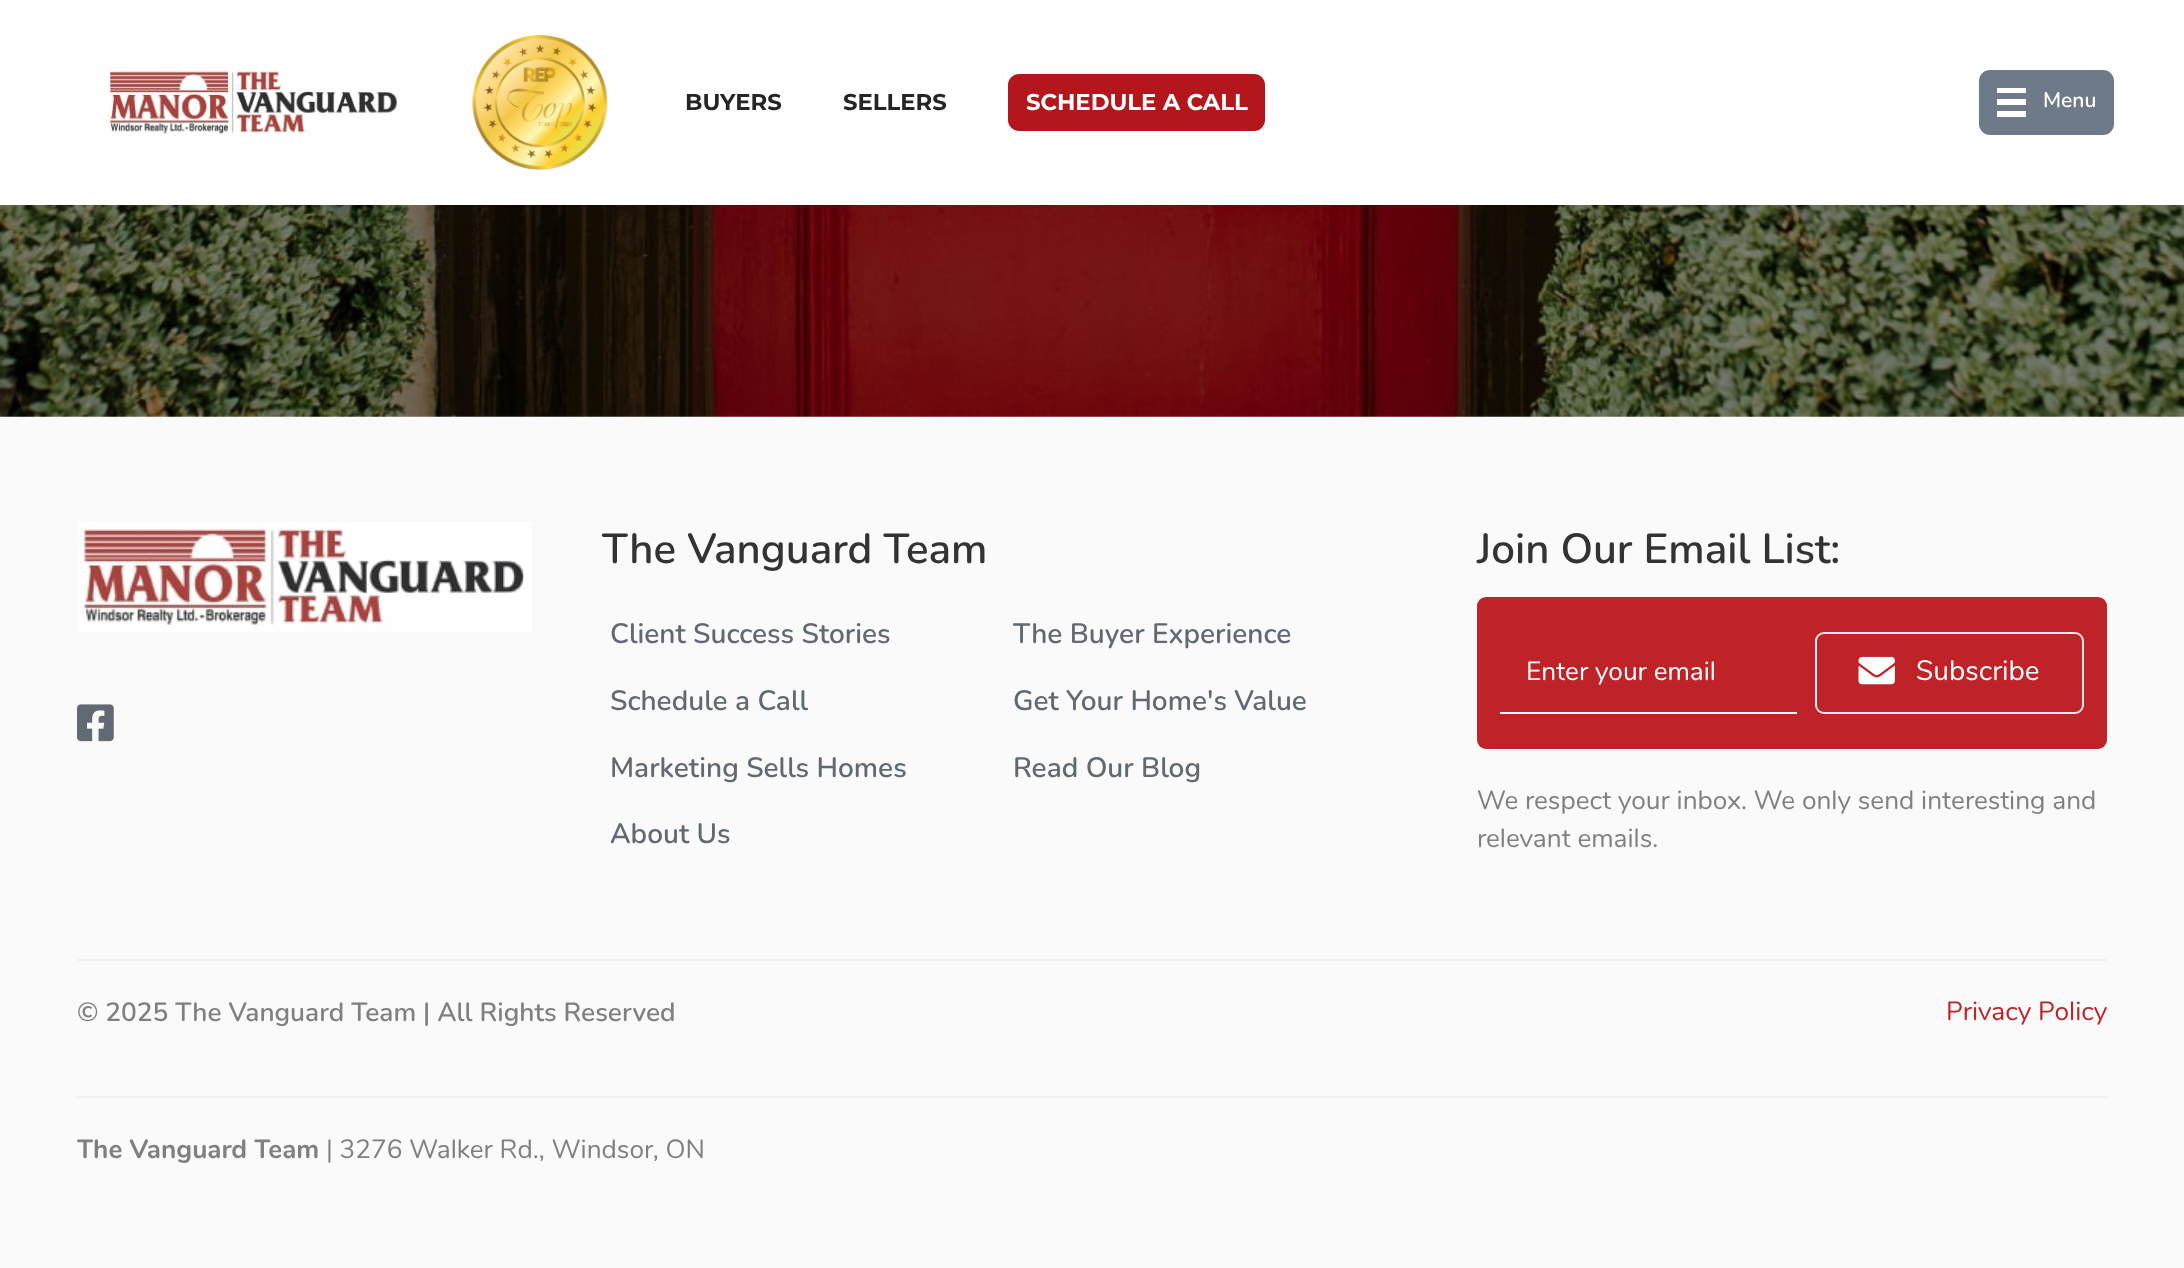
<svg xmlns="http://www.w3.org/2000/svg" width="2184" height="1268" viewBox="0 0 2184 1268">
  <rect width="100%" height="100%" fill="rgb(255,255,255)"/>
  <image x="105" y="66" width="293" height="72" href="pic1.png"/>
  <image x="472" y="35" width="136" height="135" href="pic2.png"/>
  <g font-family="Montserrat" font-size="22.75" font-weight="100" fill="rgb(37,37,37)">
    <text x="685" y="110">BUYERS</text>
    <text x="843" y="110">SELLERS</text>
  </g>
  <rect x="1008" y="74" width="257" height="57" rx="11" fill="rgb(179,22,27)"/>
  <text x="1026" y="110" font-family="Montserrat" font-size="22.75" font-weight="100" fill="rgb(255,255,255)">SCHEDULE A CALL</text>
  <rect x="1979" y="70" width="135" height="65" rx="11" fill="rgb(110,122,135)"/>
  <rect x="1997" y="88" width="29" height="5" fill="rgb(255,255,255)"/>
  <rect x="1997" y="99" width="29" height="6" fill="rgb(255,255,255)"/>
  <rect x="1997" y="111" width="29" height="6" fill="rgb(255,255,255)"/>
  <text x="2043" y="107" font-family="Nunito" font-size="21" font-weight="600" fill="rgb(255,255,255)">Menu</text>
  <image x="0" y="205" width="2184" height="212" href="pic3.png"/>
  <rect x="0" y="417" width="2184" height="851" fill="rgb(250,250,250)"/>
  <image x="77" y="522" width="455" height="110" href="pic4.png"/>
  <image x="77" y="704" width="37" height="38" href="pic5.png"/>
  <text x="602" y="563" font-family="Nunito" font-size="42" font-weight="600" fill="rgb(51,51,51)">The Vanguard Team</text>
  <g font-family="Nunito" font-size="28" font-weight="600" fill="rgb(97,105,114)">
    <text x="610" y="643">Client Success Stories</text>
    <text x="1013" y="643">The Buyer Experience</text>
    <text x="610" y="710">Schedule a Call</text>
    <text x="1013" y="710">Get Your Home's Value</text>
    <text x="610" y="777">Marketing Sells Homes</text>
    <text x="1013" y="777">Read Our Blog</text>
    <text x="610" y="843">About Us</text>
  </g>
  <text x="1477" y="563" font-family="Nunito" font-size="42" font-weight="600" fill="rgb(51,51,51)">Join Our Email List:</text>
  <rect x="1477" y="597" width="630" height="152" rx="9" fill="rgb(191,34,39)"/>
  <text x="1526" y="680" font-family="Nunito" font-size="26.25" fill="rgb(255,255,255)">Enter your email</text>
  <rect x="1500" y="712" width="297" height="2" fill="rgb(255,255,255)"/>
  <rect x="1816" y="633" width="267" height="80" rx="8" fill="none" stroke="rgb(248,232,233)" stroke-width="2"/>
  <image x="1858" y="656" width="37" height="29" href="pic6.png"/>
  <text x="1916" y="680" font-family="Nunito" font-size="28" fill="rgb(255,255,255)">Subscribe</text>
  <g font-family="Nunito" font-size="26.25" fill="rgb(128,128,128)">
    <text>
      <tspan x="1477" y="809">We respect your inbox. We only send interesting and</tspan>
      <tspan x="1477" y="847">relevant emails.</tspan>
    </text>
  </g>
  <rect x="77" y="959" width="2030" height="2" fill="rgb(241,241,242)"/>
  <text x="77" y="1021" font-family="Nunito" font-size="26.25" font-weight="600" fill="rgb(128,128,128)">© 2025 The Vanguard Team | All Rights Reserved</text>
  <text x="1946" y="1020" font-family="Nunito" font-size="26.25" fill="rgb(191,34,39)">Privacy Policy</text>
  <rect x="77" y="1096" width="2030" height="2" fill="rgb(241,241,242)"/>
  <text x="77" y="1158" font-family="Nunito" font-size="26.25" font-weight="bold" fill="rgb(128,128,128)">The Vanguard Team</text>
  <text x="326" y="1158" font-family="Nunito" font-size="26.25" fill="rgb(128,128,128)">| 3276 Walker Rd., Windsor, ON</text>
</svg>
